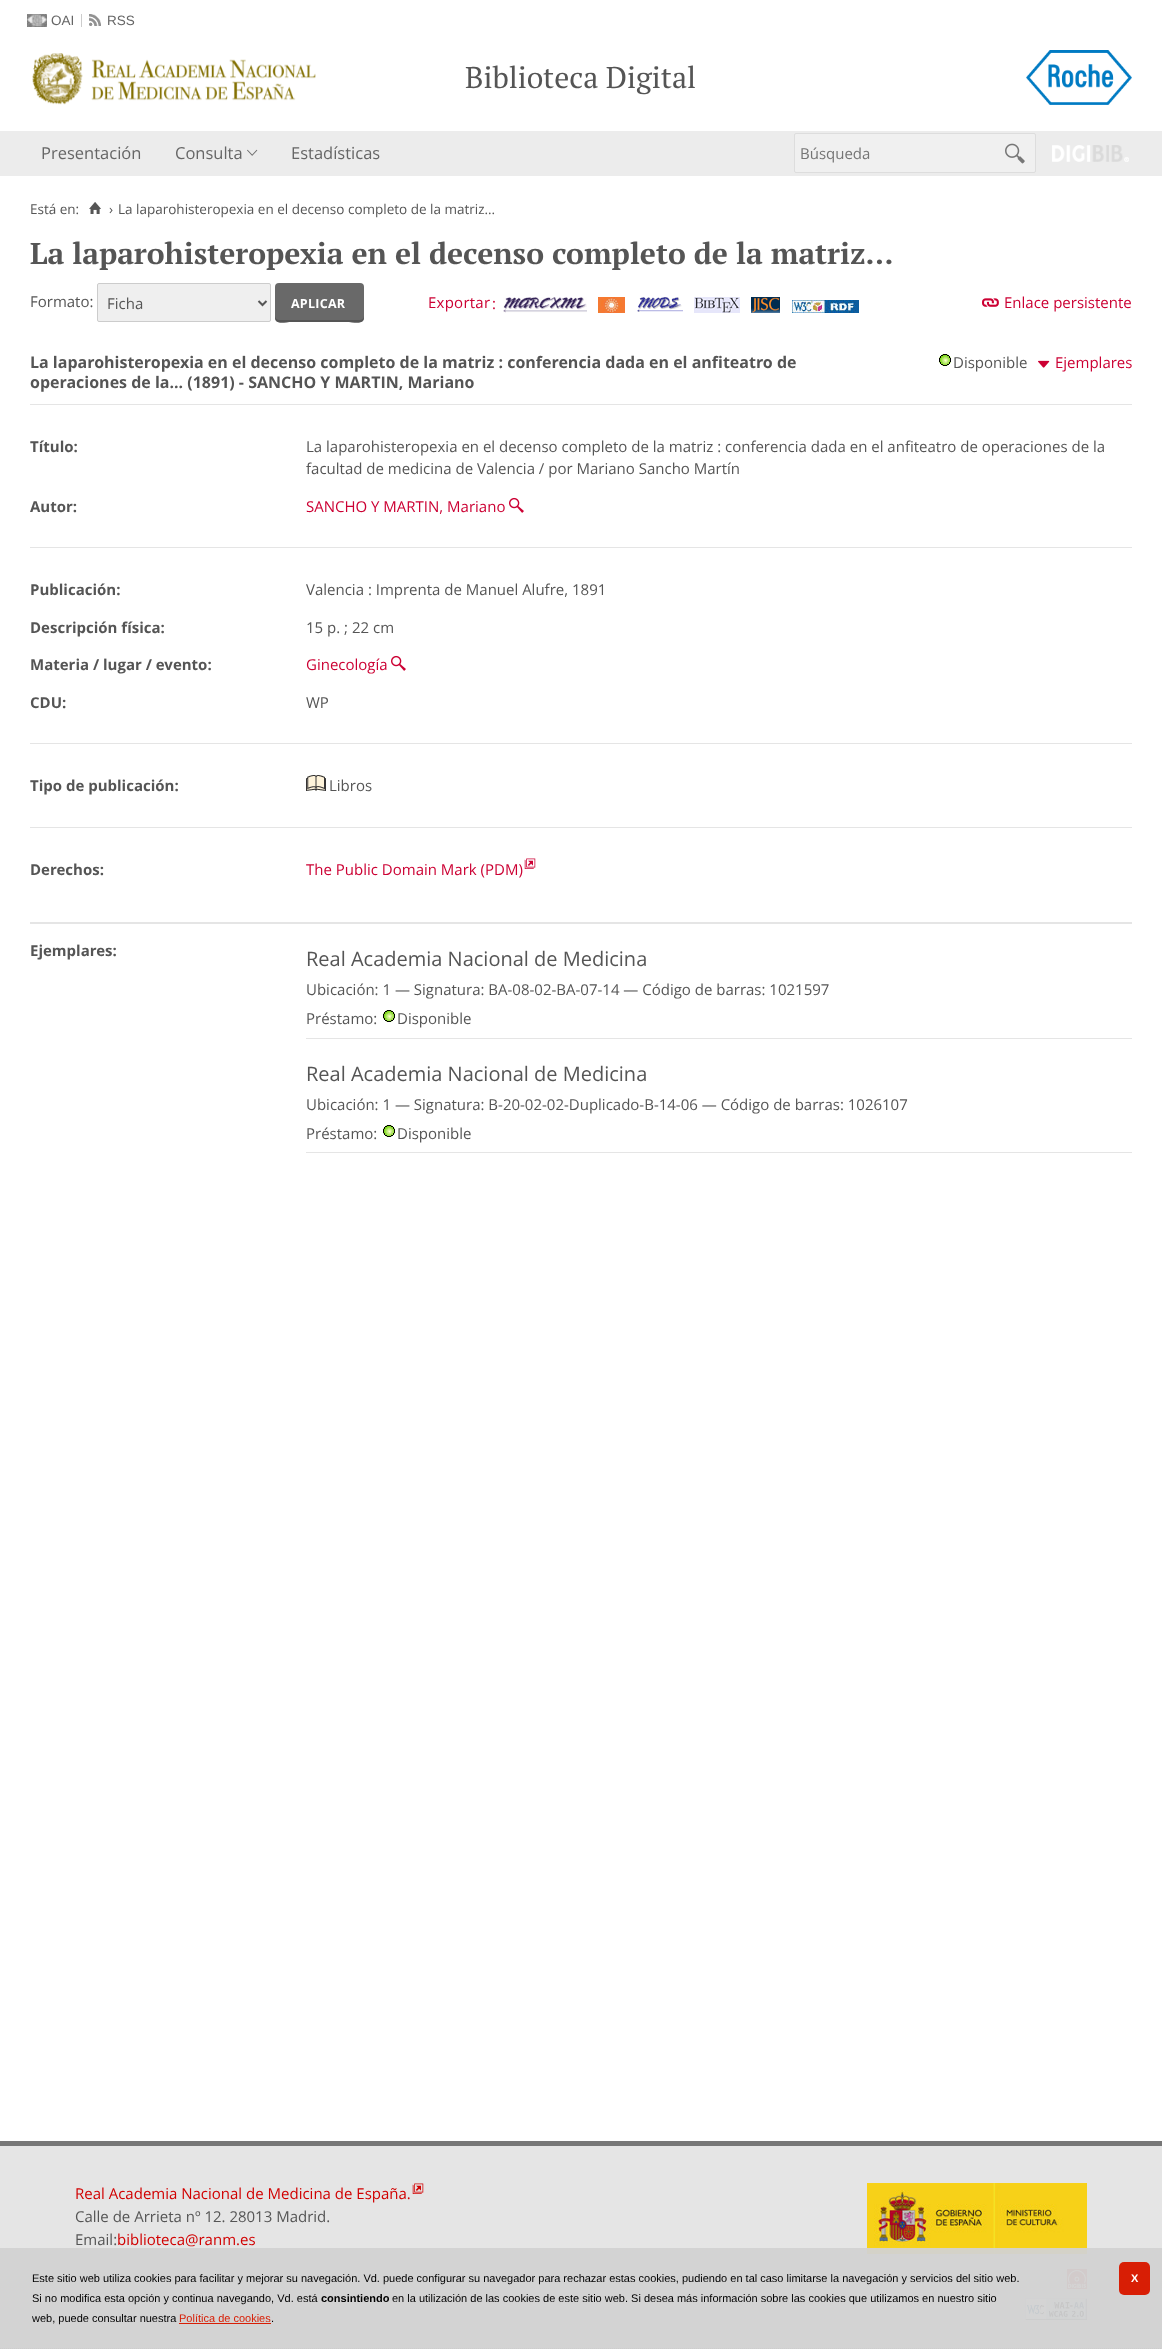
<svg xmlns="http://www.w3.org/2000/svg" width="1162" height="2349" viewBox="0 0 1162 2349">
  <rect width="100%" height="100%" fill="rgb(255,255,255)"/>
  <image x="27" y="14" width="20" height="13" href="pic1.png"/>
  <text x="51" y="25" font-family="Liberation Sans" font-size="13.5" fill="rgb(102,102,102)">OAI</text>
  <rect x="81" y="14" width="1" height="13" fill="rgb(204,204,204)"/>
  <image x="89" y="14" width="12" height="12" href="pic2.png"/>
  <text x="107" y="25" font-family="Liberation Sans" font-size="13.5" fill="rgb(102,102,102)">RSS</text>
  <image x="32" y="53" width="284" height="52" href="pic3.png"/>
  <text x="465" y="88" font-family="PT Serif" font-size="30" fill="rgb(85,85,85)">Biblioteca Digital</text>
  <image x="1026" y="50" width="106" height="55" href="pic4.png"/>
  <rect x="0" y="131" width="1162" height="45" fill="rgb(236,236,236)"/>
  <g font-family="Open Sans" font-size="16.5" fill="rgb(102,102,102)">
    <text x="41" y="159">Presentación</text>
    <text x="175" y="159">Consulta</text>
  </g>
  <image x="247" y="149" width="11" height="7" href="pic5.png"/>
  <text x="291" y="159" font-family="Open Sans" font-size="16.5" fill="rgb(102,102,102)">Estadísticas</text>
  <rect x="794.5" y="133.5" width="241" height="39" rx="1.5" fill="rgb(240,240,240)" stroke="rgb(221,221,221)"/>
  <text x="800" y="159" font-family="Open Sans" font-size="15" fill="rgb(117,117,117)">Búsqueda</text>
  <image x="1005" y="143" width="20" height="21" href="pic6.png"/>
  <image x="1052" y="145" width="77" height="17" href="pic7.png"/>
  <text x="30" y="214" font-family="Open Sans" font-size="13.5" fill="rgb(85,85,85)">Está en:</text>
  <image x="89" y="202" width="12" height="12" href="pic8.png"/>
  <g font-family="Open Sans" font-size="13.5" fill="rgb(85,85,85)">
    <text x="109" y="214">›</text>
    <text x="118" y="214">La laparohisteropexia en el decenso completo de la matriz...</text>
  </g>
  <text x="30" y="264" font-family="PT Serif" font-size="30" font-weight="bold" fill="rgb(85,85,85)">La laparohisteropexia en el decenso completo de la matriz...</text>
  <text x="30" y="307" font-family="Open Sans" font-size="15" fill="rgb(85,85,85)">Formato:</text>
  <rect x="97.5" y="283.5" width="173" height="38" rx="1.5" fill="rgb(239,239,239)" stroke="rgb(204,204,204)"/>
  <path d="M258.5 301L262.5 305L266.5 301" fill="none" stroke="rgb(85,85,85)" stroke-width="2"/>
  <text x="107" y="309" font-family="Open Sans" font-size="15" fill="rgb(85,85,85)">Ficha</text>
  <rect x="275" y="283" width="89" height="39" rx="4" fill="rgb(105,105,105)"/>
  <path d="M275 316C275 326 284 322 292 322H346C355 322 364 326 364 316C364 318 362 320 360 320H279C277 320 275 318 275 316Z" fill="rgb(85,85,85)"/>
  <text x="291" y="308" font-family="Open Sans" font-size="12.5" font-weight="bold" letter-spacing="0.25" fill="rgb(255,255,255)">APLICAR</text>
  <text x="428" y="308" font-family="Open Sans" font-size="15" letter-spacing="0.25" fill="rgb(204,0,51)">Exportar</text>
  <text x="492" y="309" font-family="Open Sans" font-size="15" fill="rgb(204,0,51)">:</text>
  <image x="503" y="297" width="84" height="16" href="pic9.png"/>
  <image x="598" y="297" width="27" height="16" href="pic10.png"/>
  <image x="637" y="297" width="46" height="15" href="pic11.png"/>
  <image x="694" y="297" width="46" height="16" href="pic12.png"/>
  <image x="751" y="297" width="29" height="16" href="pic13.png"/>
  <image x="792" y="300" width="67" height="13" href="pic14.png"/>
  <image x="982" y="298" width="17" height="9" href="pic15.png"/>
  <text x="1004" y="308" font-family="Open Sans" font-size="15" fill="rgb(204,0,51)">Enlace persistente</text>
  <rect x="30" y="404" width="1102" height="1" fill="rgb(229,229,229)"/>
  <g font-family="Open Sans" font-size="16" font-weight="bold" fill="rgb(85,85,85)">
    <text>
      <tspan x="30" y="368">La laparohisteropexia en el decenso completo de la matriz : conferencia dada en el anfiteatro de</tspan>
      <tspan x="30" y="388">operaciones de la... (1891) - SANCHO Y MARTIN, Mariano</tspan>
    </text>
  </g>
  <image x="939" y="354" width="12" height="12" href="pic16.png"/>
  <text x="953" y="368" font-family="Open Sans" font-size="15" fill="rgb(85,85,85)">Disponible</text>
  <image x="1038" y="360" width="12" height="8" href="pic17.png"/>
  <text x="1055" y="368" font-family="Open Sans" font-size="15" fill="rgb(204,0,51)">Ejemplares</text>
  <rect x="30" y="547" width="1102" height="1" fill="rgb(229,229,229)"/>
  <text x="30" y="452" font-family="Open Sans" font-size="15" font-weight="bold" fill="rgb(85,85,85)">Título:</text>
  <g font-family="Open Sans" font-size="15" fill="rgb(85,85,85)">
    <text>
      <tspan x="306" y="452">La laparohisteropexia en el decenso completo de la matriz : conferencia dada en el anfiteatro de operaciones de la</tspan>
      <tspan x="306" y="474">facultad de medicina de Valencia / por Mariano Sancho Martín</tspan>
    </text>
  </g>
  <text x="30" y="512" font-family="Open Sans" font-size="15" font-weight="bold" fill="rgb(85,85,85)">Autor:</text>
  <text x="306" y="512" font-family="Open Sans" font-size="15" fill="rgb(204,0,51)">SANCHO Y MARTIN, Mariano</text>
  <image x="509" y="497" width="15" height="16" href="pic18.png"/>
  <rect x="30" y="743" width="1102" height="1" fill="rgb(229,229,229)"/>
  <text x="30" y="595" font-family="Open Sans" font-size="15" font-weight="bold" fill="rgb(85,85,85)">Publicación:</text>
  <text x="306" y="595" font-family="Open Sans" font-size="15" fill="rgb(85,85,85)">Valencia : Imprenta de Manuel Alufre, 1891</text>
  <text x="30" y="633" font-family="Open Sans" font-size="15" font-weight="bold" fill="rgb(85,85,85)">Descripción física:</text>
  <text x="306" y="633" font-family="Open Sans" font-size="15" fill="rgb(85,85,85)">15 p. ; 22 cm</text>
  <text x="30" y="670" font-family="Open Sans" font-size="15" font-weight="bold" fill="rgb(85,85,85)">Materia / lugar / evento:</text>
  <text x="306" y="670" font-family="Open Sans" font-size="15" fill="rgb(204,0,51)">Ginecología</text>
  <image x="391" y="655" width="15" height="16" href="pic18.png"/>
  <text x="30" y="708" font-family="Open Sans" font-size="15" font-weight="bold" fill="rgb(85,85,85)">CDU:</text>
  <text x="306" y="708" font-family="Open Sans" font-size="15" fill="rgb(85,85,85)">WP</text>
  <rect x="30" y="827" width="1102" height="1" fill="rgb(229,229,229)"/>
  <text x="30" y="791" font-family="Open Sans" font-size="15" font-weight="bold" fill="rgb(85,85,85)">Tipo de publicación:</text>
  <image x="306" y="775" width="20" height="16" href="pic19.png"/>
  <text x="329" y="791" font-family="Open Sans" font-size="15" fill="rgb(85,85,85)">Libros</text>
  <rect x="30" y="922" width="1102" height="2" fill="rgb(229,229,229)"/>
  <text x="30" y="875" font-family="Open Sans" font-size="15" font-weight="bold" fill="rgb(85,85,85)">Derechos:</text>
  <text x="306" y="875" font-family="Open Sans" font-size="15" fill="rgb(204,0,51)">The Public Domain Mark (PDM)</text>
  <image x="524" y="858" width="12" height="11" href="pic20.png"/>
  <text x="30" y="956" font-family="Open Sans" font-size="15" font-weight="bold" fill="rgb(85,85,85)">Ejemplares:</text>
  <rect x="306" y="1038" width="826" height="1" fill="rgb(229,229,229)"/>
  <text x="306" y="966" font-family="Open Sans" font-size="20" fill="rgb(85,85,85)">Real Academia Nacional de Medicina</text>
  <g font-family="Open Sans" font-size="15" fill="rgb(85,85,85)">
    <text>
      <tspan x="306" y="995">Ubicación: 1 — Signatura: BA-08-02-BA-07-14 — Código de barras: 1021597</tspan>
      <tspan x="306" y="1024">Préstamo:</tspan>
    </text>
  </g>
  <image x="383" y="1010" width="12" height="12" href="pic16.png"/>
  <text x="397" y="1024" font-family="Open Sans" font-size="15" fill="rgb(85,85,85)">Disponible</text>
  <rect x="306" y="1152" width="826" height="1" fill="rgb(229,229,229)"/>
  <text x="306" y="1081" font-family="Open Sans" font-size="20" fill="rgb(85,85,85)">Real Academia Nacional de Medicina</text>
  <g font-family="Open Sans" font-size="15" fill="rgb(85,85,85)">
    <text>
      <tspan x="306" y="1110">Ubicación: 1 — Signatura: B-20-02-02-Duplicado-B-14-06 — Código de barras: 1026107</tspan>
      <tspan x="306" y="1139">Préstamo:</tspan>
    </text>
  </g>
  <image x="383" y="1125" width="12" height="12" href="pic16.png"/>
  <text x="397" y="1139" font-family="Open Sans" font-size="15" fill="rgb(85,85,85)">Disponible</text>
  <rect x="0" y="2146" width="1162" height="203" fill="rgb(229,229,229)"/>
  <rect x="0" y="2141" width="1162" height="5" fill="rgb(119,119,119)"/>
  <text x="75" y="2199" font-family="Open Sans" font-size="15" fill="rgb(209,0,0)">Real Academia Nacional de Medicina de España.</text>
  <image x="412" y="2183" width="12" height="11" href="pic21.png"/>
  <g font-family="Open Sans" font-size="15" fill="rgb(85,85,85)">
    <text>
      <tspan x="75" y="2222">Calle de Arrieta nº 12. 28013 Madrid.</tspan>
      <tspan x="75" y="2245">Email:</tspan>
    </text>
  </g>
  <text x="117" y="2245" font-family="Open Sans" font-size="15" fill="rgb(209,0,0)">biblioteca@ranm.es</text>
  <image x="867" y="2183" width="220" height="71" href="pic22.png"/>
  <image x="1067" y="2269" width="20" height="20" href="pic23.png"/>
  <image x="1025" y="2298" width="62" height="22" href="pic24.png"/>
  <rect x="0" y="2248" width="1162" height="101" fill="rgba(210,210,210,0.95)"/>
  <path d="M0 2348.5H1162" fill="none" stroke="rgb(204,204,204)" stroke-dasharray="1 1"/>
  <g font-family="Liberation Sans" font-size="11" fill="rgb(0,0,0)">
    <text>
      <tspan x="32" y="2282">Este sitio web utiliza cookies para facilitar y mejorar su navegación. Vd. puede configurar su navegador para rechazar estas cookies, pudiendo en tal caso limitarse la navegación y servicios del sitio web.</tspan>
      <tspan x="32" y="2302">Si no modifica esta opción y continua navegando, Vd. está</tspan>
    </text>
  </g>
  <text x="321" y="2302" font-family="Liberation Sans" font-size="11" font-weight="bold" fill="rgb(0,0,0)">consintiendo</text>
  <g font-family="Liberation Sans" font-size="11" fill="rgb(0,0,0)">
    <text x="392" y="2302">en la utilización de las cookies de este sitio web. Si desea más información sobre las cookies que utilizamos en nuestro sitio</text>
    <text x="32" y="2322">web, puede consultar nuestra</text>
  </g>
  <text x="179" y="2322" font-family="Liberation Sans" font-size="11" fill="rgb(216,30,5)">Política de cookies</text>
  <text x="271" y="2322" font-family="Liberation Sans" font-size="11" fill="rgb(0,0,0)">.</text>
  <rect x="179" y="2323" width="92" height="1" fill="rgb(216,30,5)"/>
  <rect x="1119" y="2262" width="31" height="33" rx="5" fill="rgb(216,30,5)"/>
  <text x="1131" y="2282" font-family="Liberation Sans" font-size="11" font-weight="bold" letter-spacing="-1" fill="rgb(255,255,255)">X</text>
</svg>
